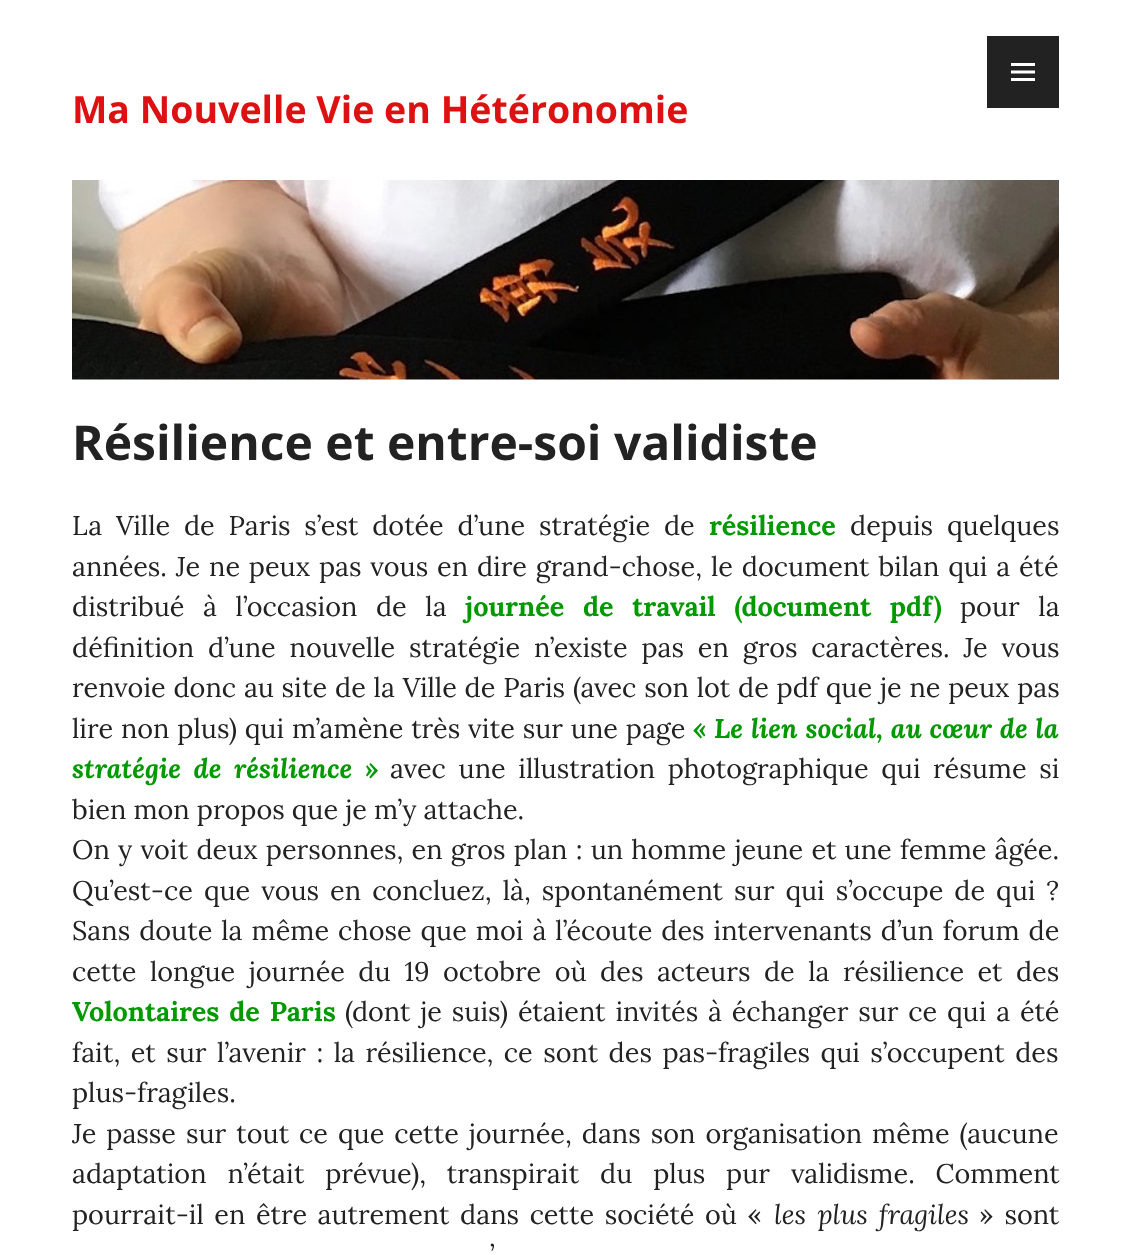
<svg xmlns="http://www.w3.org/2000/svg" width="1130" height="1255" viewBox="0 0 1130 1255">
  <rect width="100%" height="100%" fill="rgb(255,255,255)"/>
  <text x="72" y="123" font-family="Open Sans" font-size="37.5" font-weight="bold" fill="rgb(221,17,17)">Ma Nouvelle Vie en Hétéronomie</text>
  <rect x="987" y="36" width="72" height="72" fill="rgb(34,34,34)"/>
  <image x="1011" y="63" width="24" height="18" href="pic1.png"/>
  <image x="72" y="180" width="987" height="200" href="pic2.png"/>
  <text x="72" y="460" font-family="Open Sans" font-size="48" font-weight="bold" fill="rgb(34,34,34)">Résilience et entre-soi validiste</text>
  <text x="72" y="535" word-spacing="6.75" font-family="Lora" font-size="27" fill="rgb(34,34,34)">La Ville de Paris s’est dotée d’une stratégie de</text>
  <text x="709" y="535" font-family="Lora" font-size="27" font-weight="bold" fill="rgb(0,153,0)">résilience</text>
  <g font-family="Lora" font-size="27" fill="rgb(34,34,34)">
    <text x="850" y="535" word-spacing="6.75">depuis quelques</text>
    <text>
      <tspan x="72" y="576" word-spacing="1.75">années. Je ne peux pas vous en dire grand-chose, le document bilan qui a été</tspan>
      <tspan x="72" y="616" word-spacing="11.5">distribué à l’occasion de la</tspan>
    </text>
  </g>
  <text x="465" y="616" word-spacing="11.5" font-family="Lora" font-size="27" font-weight="bold" fill="rgb(0,153,0)">journée de travail (document pdf)</text>
  <g font-family="Lora" font-size="27" fill="rgb(34,34,34)">
    <text x="960" y="616" word-spacing="11.5">pour la</text>
    <text>
      <tspan x="72" y="657" word-spacing="6.75">définition d’une nouvelle stratégie n’existe pas en gros caractères. Je vous</tspan>
      <tspan x="72" y="697" word-spacing="0.7">renvoie donc au site de la Ville de Paris (avec son lot de pdf que je ne peux pas</tspan>
      <tspan x="72" y="738" word-spacing="0.75">lire non plus) qui m’amène très vite sur une page</tspan>
    </text>
  </g>
  <text x="693" y="738" font-family="Lora" font-size="27" font-weight="bold" fill="rgb(0,153,0)">«</text>
  <g font-family="Lora" font-size="27" font-weight="bold" font-style="italic" fill="rgb(0,153,0)">
    <text x="714" y="738" word-spacing="0.75">Le lien social, au cœur de la</text>
    <text x="72" y="778" word-spacing="5.5">stratégie de résilience</text>
  </g>
  <text x="365" y="778" font-family="Lora" font-size="27" font-weight="bold" fill="rgb(0,153,0)">»</text>
  <g font-family="Lora" font-size="27" fill="rgb(34,34,34)">
    <text x="390" y="778" word-spacing="5.5">avec une illustration photographique qui résume si</text>
    <text>
      <tspan x="72" y="819">bien mon propos que je m’y attache.</tspan>
      <tspan x="72" y="859" word-spacing="1.1">On y voit deux personnes, en gros plan : un homme jeune et une femme âgée.</tspan>
      <tspan x="72" y="900" word-spacing="3.9">Qu’est-ce que vous en concluez, là, spontanément sur qui s’occupe de qui ?</tspan>
      <tspan x="72" y="940" word-spacing="1.9">Sans doute la même chose que moi à l’écoute des intervenants d’un forum de</tspan>
      <tspan x="72" y="981" word-spacing="6.4">cette longue journée du 19 octobre où des acteurs de la résilience et des</tspan>
    </text>
  </g>
  <text x="72" y="1021" word-spacing="2.75" font-family="Lora" font-size="27" font-weight="bold" fill="rgb(0,153,0)">Volontaires de Paris</text>
  <g font-family="Lora" font-size="27" fill="rgb(34,34,34)">
    <text x="345" y="1021" word-spacing="2.75">(dont je suis) étaient invités à échanger sur ce qui a été</text>
    <text>
      <tspan x="72" y="1062" word-spacing="3.4">fait, et sur l’avenir : la résilience, ce sont des pas-fragiles qui s’occupent des</tspan>
      <tspan x="72" y="1102">plus-fragiles.</tspan>
      <tspan x="72" y="1143" word-spacing="2.9">Je passe sur tout ce que cette journée, dans son organisation même (aucune</tspan>
      <tspan x="72" y="1183" word-spacing="13.75">adaptation n’était prévue), transpirait du plus pur validisme. Comment</tspan>
      <tspan x="72" y="1224" word-spacing="3.5">pourrait-il en être autrement dans cette société où «</tspan>
    </text>
  </g>
  <text x="774" y="1224" word-spacing="4" font-family="Lora" font-size="27" font-style="italic" fill="rgb(34,34,34)">les plus fragiles</text>
  <g font-family="Lora" font-size="27" fill="rgb(34,34,34)">
    <text x="979" y="1224" word-spacing="4">» sont</text>
    <text x="490" y="1264" word-spacing="10">’</text>
  </g>
</svg>
